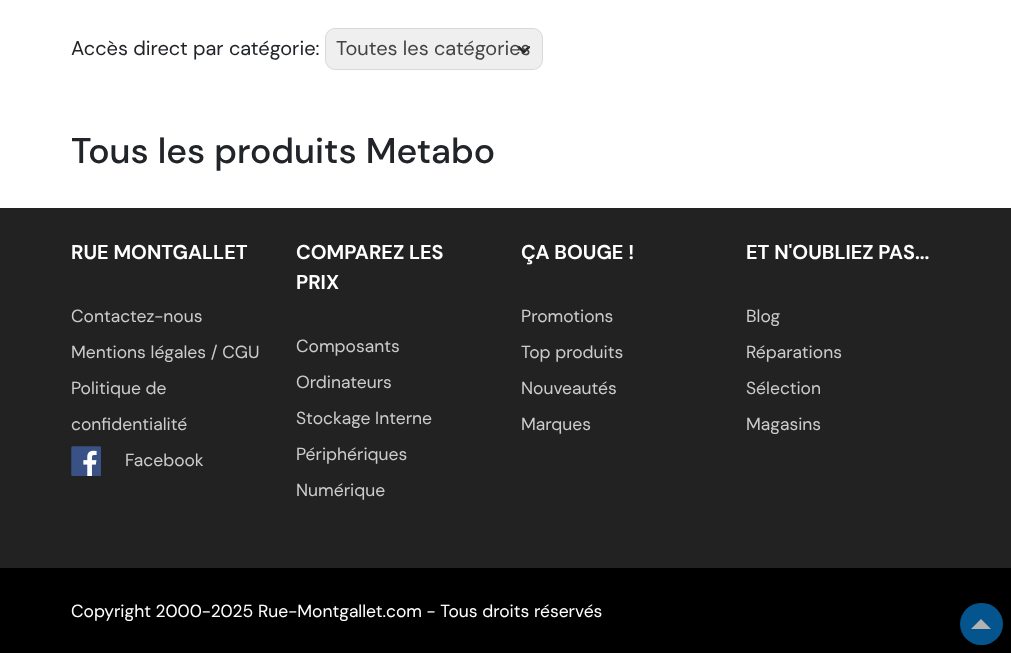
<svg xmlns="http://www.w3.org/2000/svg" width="1011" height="653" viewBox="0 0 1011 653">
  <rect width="100%" height="100%" fill="rgb(255,255,255)"/>
  <text x="71" y="55" font-family="DM Sans" font-size="20" fill="rgb(33,37,41)">Accès direct par catégorie:</text>
  <rect x="325" y="28" width="218" height="42" rx="10" fill="rgb(239,239,239)"/>
  <image x="517" y="45" width="13" height="9" href="pic1.png"/>
  <rect x="325.5" y="28.5" width="217" height="41" rx="9.5" fill="none" stroke="rgba(18,18,18,0.1)"/>
  <text x="336" y="55" font-family="DM Sans" font-size="20" fill="rgb(68,68,68)">Toutes les catégories</text>
  <text x="71" y="163" font-family="DM Sans" font-size="35.6" font-weight="500" fill="rgb(33,37,41)">Tous les produits Metabo</text>
  <rect x="0" y="208" width="1011" height="360" fill="rgb(34,34,34)"/>
  <text x="71" y="259" font-family="DM Sans" font-size="20" font-weight="bold" fill="rgb(255,255,255)">RUE MONTGALLET</text>
  <g font-family="DM Sans" font-size="17.5" fill="rgb(204,204,204)">
    <text x="71" y="322">Contactez-nous</text>
    <text x="71" y="358">Mentions légales / CGU</text>
    <text x="71" y="394">Politique de</text>
    <text x="71" y="430">confidentialité</text>
  </g>
  <image x="71" y="446" width="30" height="30" href="pic2.png"/>
  <text x="125" y="466" font-family="DM Sans" font-size="17.5" fill="rgb(204,204,204)">Facebook</text>
  <g font-family="DM Sans" font-size="20" font-weight="bold" fill="rgb(255,255,255)">
    <text>
      <tspan x="296" y="259">COMPAREZ LES</tspan>
      <tspan x="296" y="289">PRIX</tspan>
    </text>
  </g>
  <g font-family="DM Sans" font-size="17.5" fill="rgb(204,204,204)">
    <text x="296" y="352">Composants</text>
    <text x="296" y="388">Ordinateurs</text>
    <text x="296" y="424">Stockage Interne</text>
    <text x="296" y="460">Périphériques</text>
    <text x="296" y="496">Numérique</text>
  </g>
  <text x="521" y="259" font-family="DM Sans" font-size="20" font-weight="bold" fill="rgb(255,255,255)">ÇA BOUGE !</text>
  <g font-family="DM Sans" font-size="17.5" fill="rgb(204,204,204)">
    <text x="521" y="322">Promotions</text>
    <text x="521" y="358">Top produits</text>
    <text x="521" y="394">Nouveautés</text>
    <text x="521" y="430">Marques</text>
  </g>
  <text x="746" y="259" font-family="DM Sans" font-size="20" font-weight="bold" fill="rgb(255,255,255)">ET N'OUBLIEZ PAS...</text>
  <g font-family="DM Sans" font-size="17.5" fill="rgb(204,204,204)">
    <text x="746" y="322">Blog</text>
    <text x="746" y="358">Réparations</text>
    <text x="746" y="394">Sélection</text>
    <text x="746" y="430">Magasins</text>
  </g>
  <rect x="0" y="568" width="1011" height="85" fill="rgb(0,0,0)"/>
  <text x="71" y="617" font-family="DM Sans" font-size="17.5" fill="rgb(255,255,255)">Copyright 2000-2025 Rue-Montgallet.com - Tous droits réservés</text>
  <rect x="960" y="603" width="43" height="42" rx="21" fill="rgb(4,85,142)"/>
  <path d="M991 629H971L981 619Z" fill="rgb(179,179,179)"/>
</svg>
